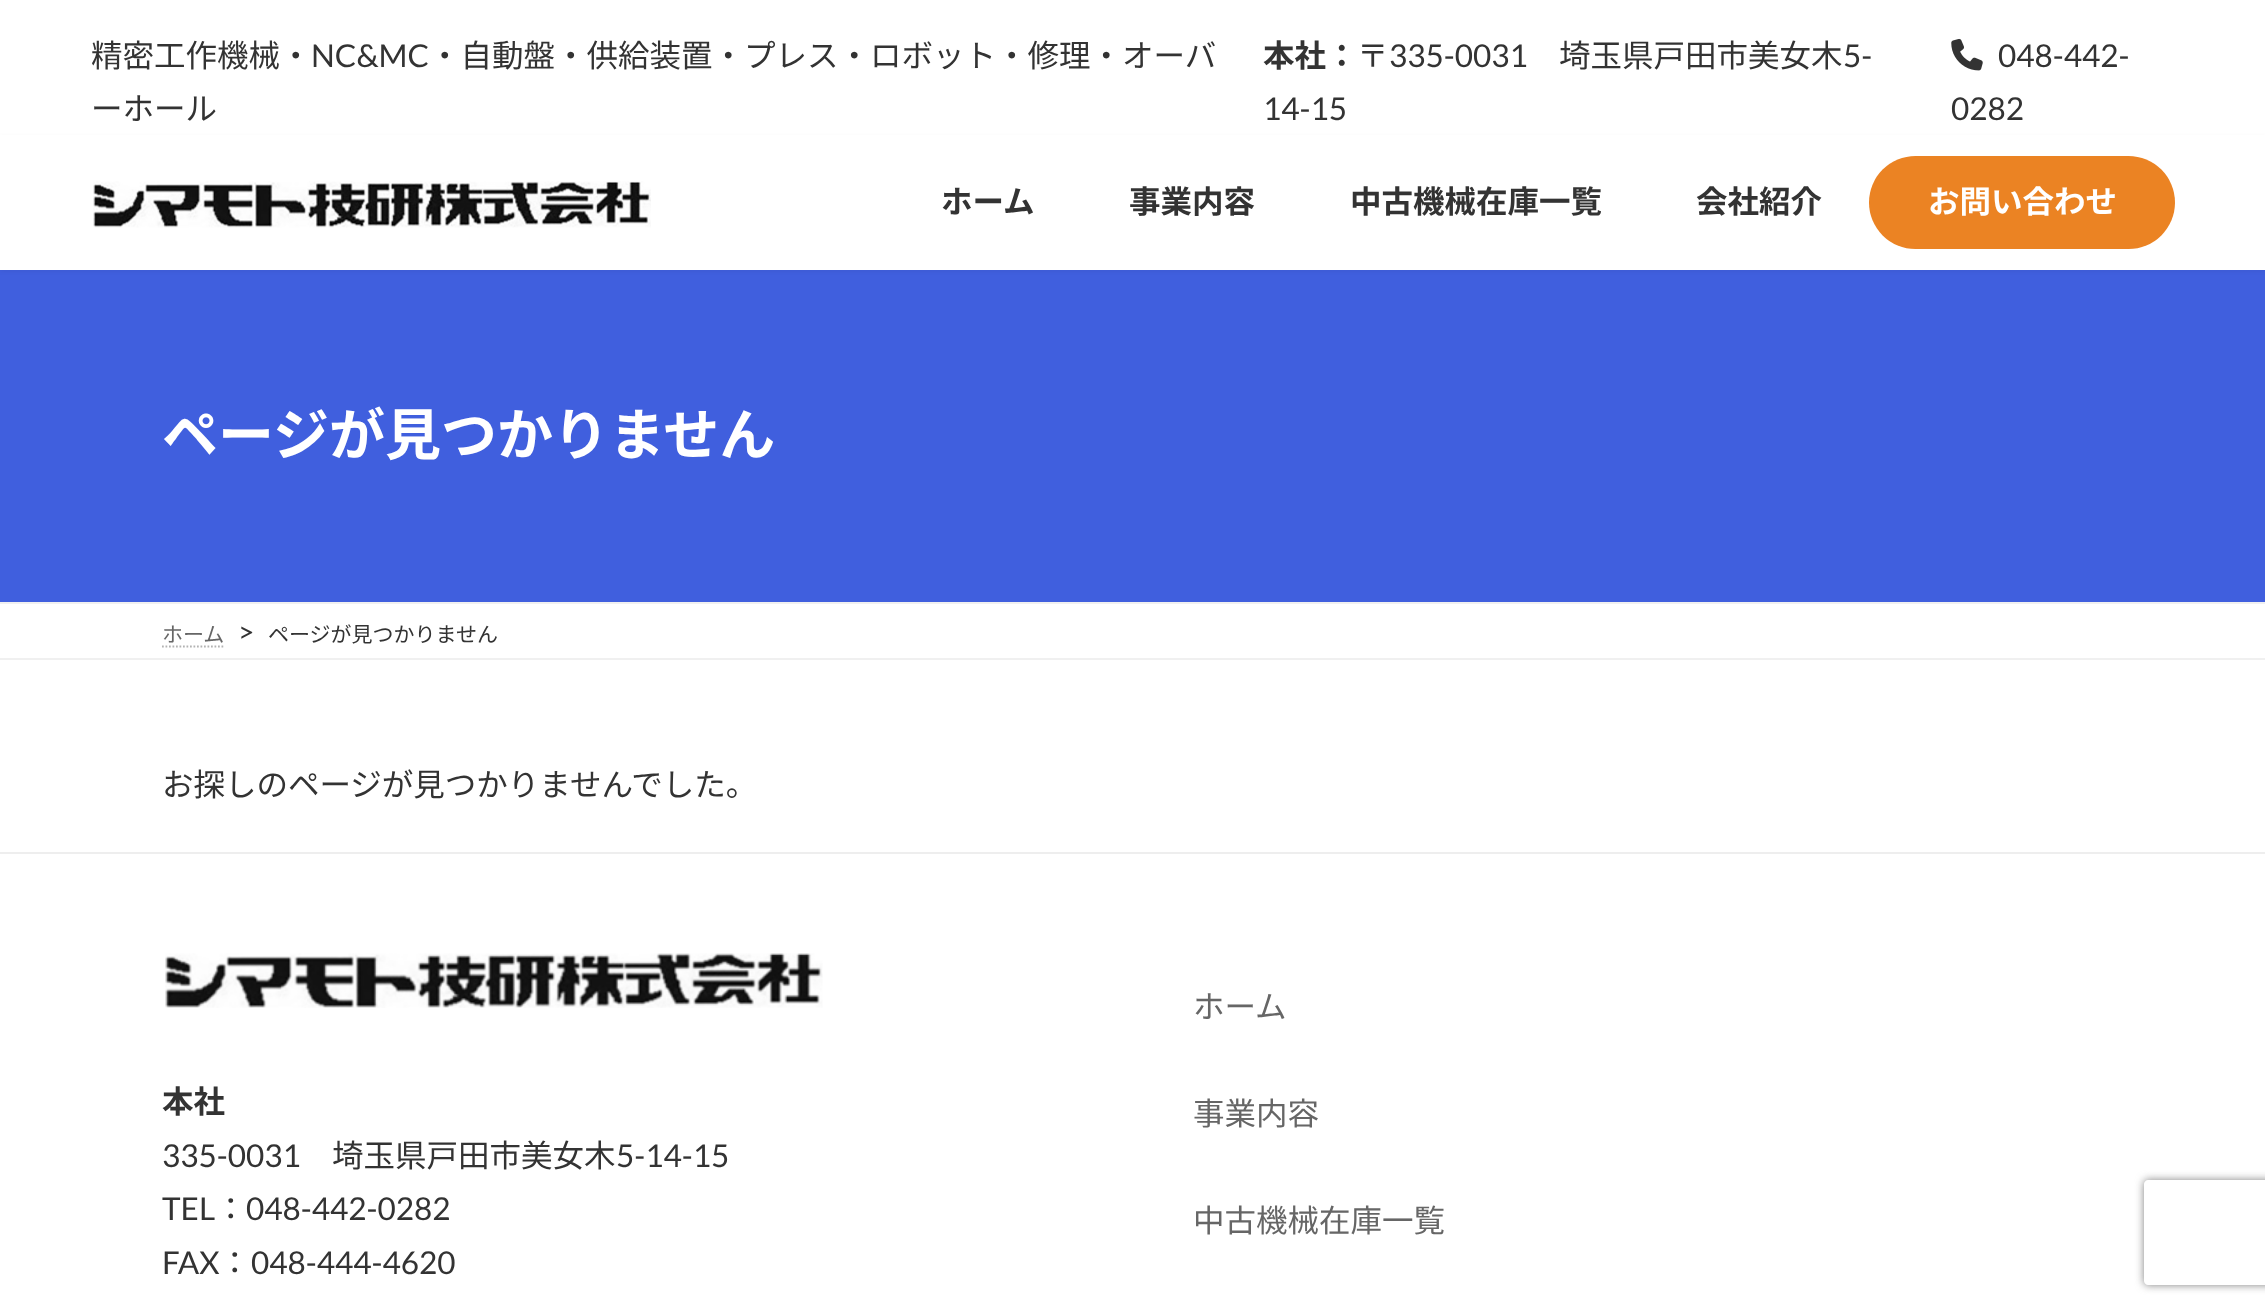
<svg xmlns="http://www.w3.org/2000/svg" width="2265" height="1309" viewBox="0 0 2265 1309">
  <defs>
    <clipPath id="clip1"><path d="M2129 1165H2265V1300H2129ZM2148 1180H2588C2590 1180 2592 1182 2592 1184V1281C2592 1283 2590 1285 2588 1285H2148C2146 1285 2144 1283 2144 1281V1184C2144 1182 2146 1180 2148 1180Z" clip-rule="evenodd"/></clipPath>
  </defs>
  <rect width="100%" height="100%" fill="rgb(255,255,255)"/>
  <text x="91" y="67" font-family="Noto Sans JP" font-size="31.5" fill="rgb(51,51,51)">精密工作機械・</text>
  <text x="311" y="67" font-family="Lato" font-size="31.5" fill="rgb(51,51,51)">NC&amp;MC</text>
  <g font-family="Noto Sans JP" font-size="31.5" fill="rgb(51,51,51)">
    <text x="429" y="67">・自動盤・供給装置・プレス・ロボット・修理・オーバ</text>
    <text x="91" y="120">ーホール</text>
  </g>
  <text x="1263" y="67" font-family="Noto Sans JP" font-size="31.5" font-weight="bold" fill="rgb(51,51,51)">本社：</text>
  <text x="1357" y="67" font-family="Noto Sans JP" font-size="31.5" fill="rgb(51,51,51)">〒</text>
  <text x="1389" y="67" font-family="Lato" font-size="31.5" fill="rgb(51,51,51)">335-0031</text>
  <text x="1559" y="67" font-family="Noto Sans JP" font-size="31.5" fill="rgb(51,51,51)">埼玉県戸田市美女木</text>
  <g font-family="Lato" font-size="31.5" fill="rgb(51,51,51)">
    <text x="1843" y="67">5-</text>
    <text x="1263" y="120">14-15</text>
  </g>
  <image x="1951" y="38" width="32" height="33" href="pic1.png"/>
  <g font-family="Lato" font-size="31.5" fill="rgb(51,51,51)">
    <text x="1998" y="67">048-442-</text>
    <text x="1951" y="120">0282</text>
  </g>
  <rect x="0" y="270" width="2265" height="332" fill="rgb(64,95,222)"/>
  <rect x="0" y="137" width="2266" height="134" fill="rgba(0,0,0,0.05)" filter="blur(2.5px)"/>
  <rect x="0" y="135" width="2265" height="135" fill="rgb(255,255,255)"/>
  <image x="93" y="181" width="558" height="47" href="pic2.png"/>
  <g font-family="Noto Sans JP" font-size="31.5" font-weight="bold" fill="rgb(51,51,51)">
    <text x="941" y="213">ホーム</text>
    <text x="1129" y="213">事業内容</text>
    <text x="1350" y="213">中古機械在庫一覧</text>
    <text x="1696" y="213">会社紹介</text>
  </g>
  <rect x="1869" y="156" width="306" height="93" rx="46.5" fill="rgb(235,131,35)"/>
  <text x="1928" y="213" font-family="Noto Sans JP" font-size="31.5" font-weight="bold" fill="rgb(255,255,255)">お問い合わせ</text>
  <text x="162" y="455" font-family="Noto Sans JP" font-size="56" font-weight="bold" fill="rgb(255,255,255)">ページが見つかりません</text>
  <rect x="0" y="602" width="2265" height="2" fill="rgb(240,240,240)"/>
  <rect x="0" y="658" width="2265" height="2" fill="rgb(240,240,240)"/>
  <text x="162" y="642" font-family="Noto Sans JP" font-size="21" fill="rgb(102,102,102)">ホーム</text>
  <path d="M162 646.5H224" fill="none" stroke="rgb(179,179,179)" stroke-width="1.8" stroke-dasharray="1.75 1.75"/>
  <text x="238" y="642" font-family="Lato" font-size="28" fill="rgb(51,51,51)">&gt;</text>
  <text x="268" y="642" font-family="Noto Sans JP" font-size="21" fill="rgb(51,51,51)">ページが見つかりません</text>
  <text x="162" y="796" font-family="Noto Sans JP" font-size="31.5" fill="rgb(51,51,51)">お探しのページが見つかりませんでした。</text>
  <rect x="0" y="852" width="2265" height="2" fill="rgb(238,238,238)"/>
  <image x="165" y="953" width="658" height="55" href="pic3.png"/>
  <text x="162" y="1113" font-family="Noto Sans JP" font-size="31.5" font-weight="bold" fill="rgb(51,51,51)">本社</text>
  <text x="162" y="1167" font-family="Lato" font-size="31.5" fill="rgb(51,51,51)">335-0031</text>
  <text x="332" y="1167" font-family="Noto Sans JP" font-size="31.5" fill="rgb(51,51,51)">埼玉県戸田市美女木</text>
  <g font-family="Lato" font-size="31.5" fill="rgb(51,51,51)">
    <text x="616" y="1167">5-14-15</text>
    <text x="162" y="1220">TEL</text>
  </g>
  <text x="215" y="1220" font-family="Noto Sans JP" font-size="31.5" fill="rgb(51,51,51)">：</text>
  <g font-family="Lato" font-size="31.5" fill="rgb(51,51,51)">
    <text x="246" y="1220">048-442-0282</text>
    <text x="162" y="1274">FAX</text>
  </g>
  <text x="219" y="1274" font-family="Noto Sans JP" font-size="31.5" fill="rgb(51,51,51)">：</text>
  <text x="251" y="1274" font-family="Lato" font-size="31.5" fill="rgb(51,51,51)">048-444-4620</text>
  <g font-family="Noto Sans JP" font-size="31.5" fill="rgb(102,102,102)">
    <text x="1193" y="1018">ホーム</text>
    <text x="1193" y="1125">事業内容</text>
    <text x="1193" y="1232">中古機械在庫一覧</text>
  </g>
  <g clip-path="url(#clip1)">
    <rect x="2144" y="1180" width="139" height="105" rx="4" fill="rgb(128,128,128)" filter="blur(4.5px)"/>
  </g>
</svg>
